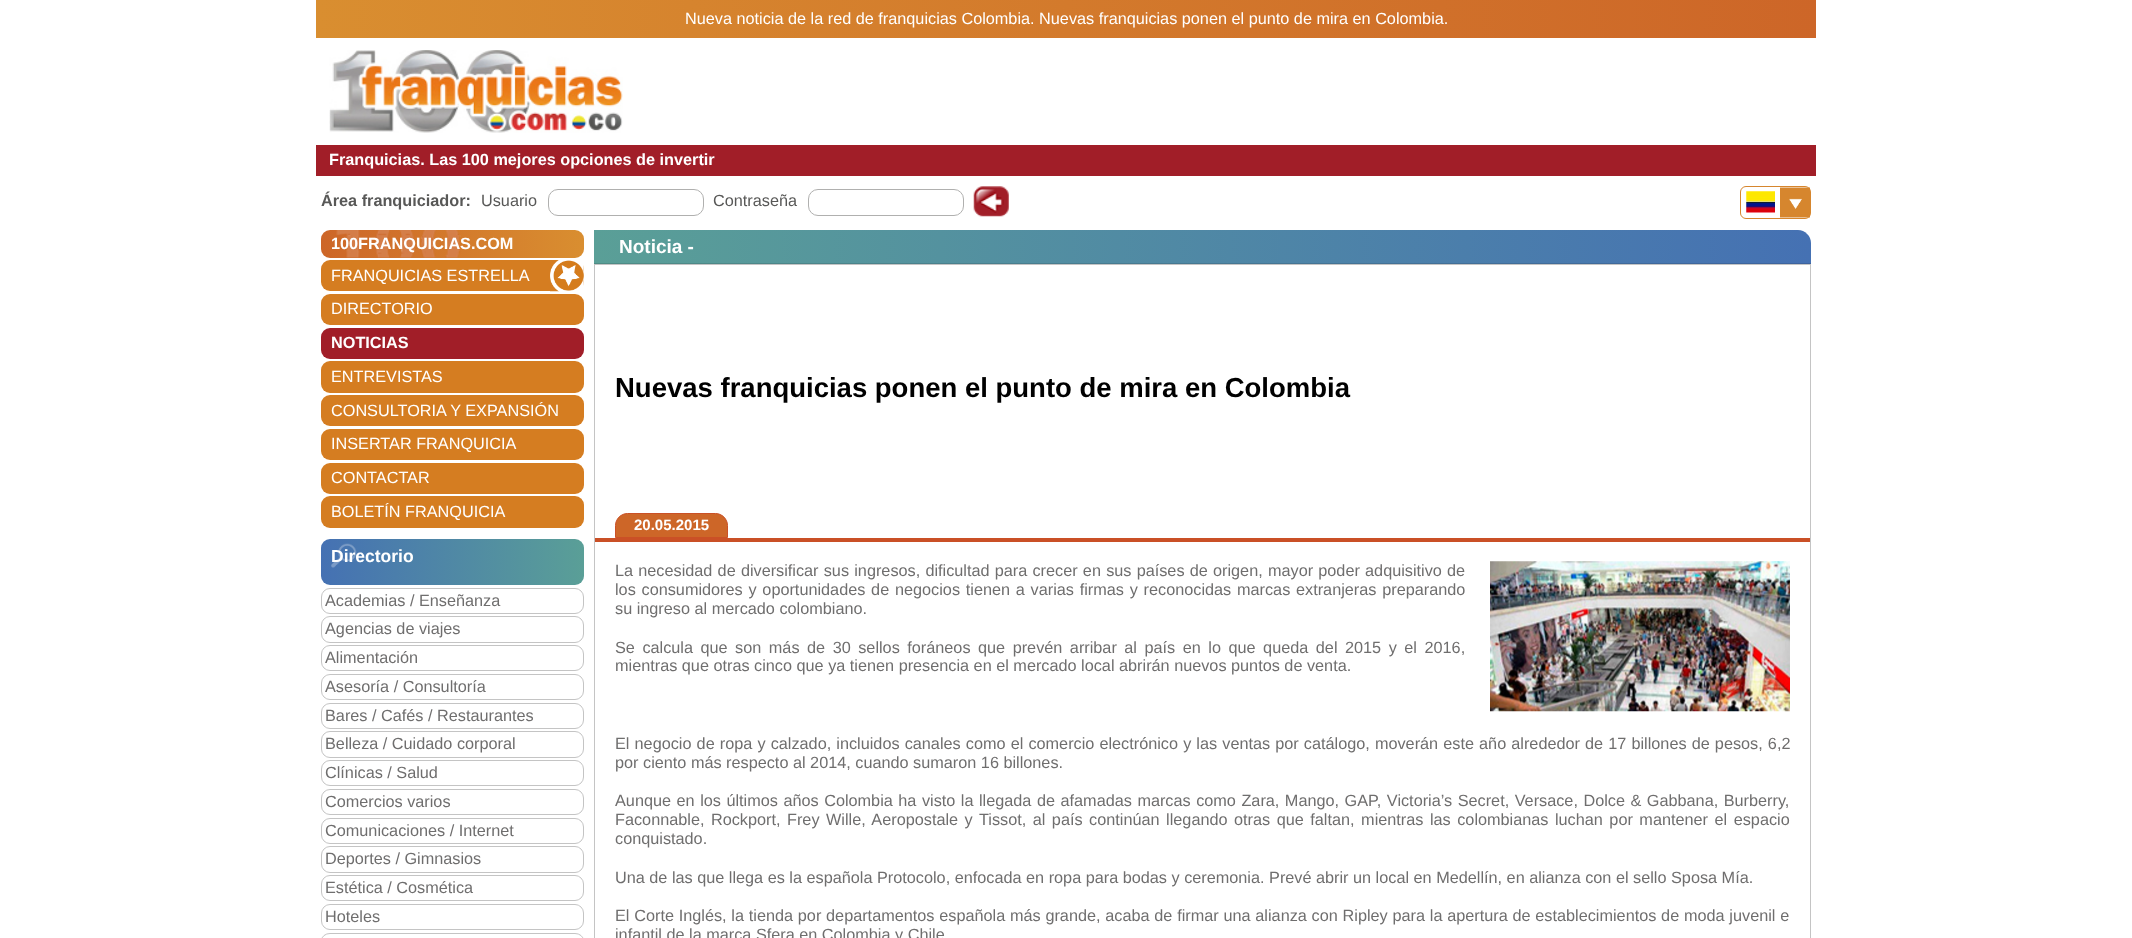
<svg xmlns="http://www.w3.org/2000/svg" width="2132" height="938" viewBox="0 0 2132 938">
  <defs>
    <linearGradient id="g1" gradientUnits="userSpaceOnUse" x1="316" y1="19" x2="1816" y2="19"><stop offset="0" stop-color="rgb(217,142,48)"/><stop offset="1" stop-color="rgb(205,102,40)"/></linearGradient>
    <linearGradient id="g2" gradientUnits="userSpaceOnUse" x1="321" y1="244" x2="584" y2="244"><stop offset="0" stop-color="rgb(205,102,40)"/><stop offset="1" stop-color="rgb(217,142,48)"/></linearGradient>
    <linearGradient id="g3" gradientUnits="userSpaceOnUse" x1="321" y1="562" x2="584" y2="562"><stop offset="0" stop-color="rgb(69,113,179)"/><stop offset="1" stop-color="rgb(90,159,151)"/></linearGradient>
    <linearGradient id="g4" gradientUnits="userSpaceOnUse" x1="1811" y1="246" x2="594" y2="246"><stop offset="0" stop-color="rgb(69,113,179)"/><stop offset="1" stop-color="rgb(90,159,151)"/></linearGradient>
    <linearGradient id="g5" gradientUnits="userSpaceOnUse" x1="1811" y1="246" x2="594" y2="246"><stop offset="0" stop-color="rgb(61,99,158)"/><stop offset="1" stop-color="rgb(79,140,133)"/></linearGradient>
  </defs>
  <rect width="100%" height="100%" fill="rgb(255,255,255)"/>
  <rect x="316" y="0" width="1500" height="38" fill="url(#g1)"/>
  <text x="685" y="24" font-family="Liberation Sans" font-size="16.25" fill="rgb(255,255,255)">Nueva noticia de la red de franquicias Colombia. Nuevas franquicias ponen el punto de mira en Colombia.</text>
  <image x="329" y="50" width="294" height="83" href="pic1.png"/>
  <rect x="316" y="145" width="1500" height="31" fill="rgb(161,30,40)"/>
  <text x="329" y="165" font-family="Liberation Sans" font-size="16.25" font-weight="bold" fill="rgb(255,255,255)">Franquicias. Las 100 mejores opciones de invertir</text>
  <rect x="1740.5" y="186.5" width="70" height="32" rx="5.5" fill="none" stroke="rgb(214,134,46)"/>
  <image x="1746" y="191" width="29" height="22" href="pic2.png"/>
  <image x="1780" y="187" width="30" height="31" href="pic3.png"/>
  <text x="321" y="206" font-family="Liberation Sans" font-size="16.25" font-weight="bold" fill="rgb(88,88,87)">Área franquiciador:</text>
  <text x="481" y="206" font-family="Liberation Sans" font-size="16.25" fill="rgb(88,88,87)">Usuario</text>
  <rect x="548.5" y="189.5" width="155" height="26" rx="9.5" fill="none" stroke="rgb(176,176,175)"/>
  <text x="713" y="206" font-family="Liberation Sans" font-size="16.25" fill="rgb(88,88,87)">Contraseña</text>
  <rect x="808.5" y="189.5" width="155" height="26" rx="9.5" fill="none" stroke="rgb(176,176,175)"/>
  <image x="973" y="186" width="36" height="31" href="pic4.png"/>
  <rect x="321" y="230" width="263" height="28" rx="9" fill="url(#g2)"/>
  <image x="336" y="230" width="125" height="28" href="pic5.png"/>
  <text x="331" y="249" font-family="Liberation Sans" font-size="16.25" font-weight="bold" fill="rgb(255,255,255)">100FRANQUICIAS.COM</text>
  <rect x="321" y="260" width="263" height="31" rx="9" fill="rgb(213,125,33)"/>
  <image x="550" y="260" width="34" height="32" href="pic6.png"/>
  <text x="331" y="281" font-family="Liberation Sans" font-size="16.25" fill="rgb(255,255,255)">FRANQUICIAS ESTRELLA</text>
  <rect x="321" y="294" width="263" height="31" rx="9" fill="rgb(213,125,33)"/>
  <text x="331" y="314" font-family="Liberation Sans" font-size="16.25" fill="rgb(255,255,255)">DIRECTORIO</text>
  <rect x="321" y="328" width="263" height="31" rx="9" fill="rgb(161,30,40)"/>
  <text x="331" y="348" font-family="Liberation Sans" font-size="16.25" font-weight="bold" fill="rgb(255,255,255)">NOTICIAS</text>
  <rect x="321" y="361" width="263" height="32" rx="9" fill="rgb(213,125,33)"/>
  <text x="331" y="382" font-family="Liberation Sans" font-size="16.25" fill="rgb(255,255,255)">ENTREVISTAS</text>
  <rect x="321" y="395" width="263" height="31" rx="9" fill="rgb(213,125,33)"/>
  <text x="331" y="416" font-family="Liberation Sans" font-size="16.25" fill="rgb(255,255,255)">CONSULTORIA Y EXPANSIÓN</text>
  <rect x="321" y="429" width="263" height="31" rx="9" fill="rgb(213,125,33)"/>
  <text x="331" y="449" font-family="Liberation Sans" font-size="16.25" fill="rgb(255,255,255)">INSERTAR FRANQUICIA</text>
  <rect x="321" y="463" width="263" height="31" rx="9" fill="rgb(213,125,33)"/>
  <text x="331" y="483" font-family="Liberation Sans" font-size="16.25" fill="rgb(255,255,255)">CONTACTAR</text>
  <rect x="321" y="496" width="263" height="32" rx="9" fill="rgb(213,125,33)"/>
  <text x="331" y="517" font-family="Liberation Sans" font-size="16.25" fill="rgb(255,255,255)">BOLETÍN FRANQUICIA</text>
  <rect x="321" y="539" width="263" height="46" rx="9" fill="url(#g3)"/>
  <image x="331" y="543" width="26" height="25" href="pic7.png"/>
  <text x="331" y="562" font-family="Liberation Sans" font-size="17.5" font-weight="bold" fill="rgb(255,255,255)">Directorio</text>
  <rect x="321.5" y="588.5" width="262" height="25" rx="8.5" fill="none" stroke="rgb(196,196,196)"/>
  <text x="325" y="606" font-family="Liberation Sans" font-size="16.25" fill="rgb(111,110,110)">Academias / Enseñanza</text>
  <rect x="321.5" y="616.5" width="262" height="26" rx="8.5" fill="none" stroke="rgb(196,196,196)"/>
  <text x="325" y="634" font-family="Liberation Sans" font-size="16.25" fill="rgb(111,110,110)">Agencias de viajes</text>
  <rect x="321.5" y="645.5" width="262" height="25" rx="8.5" fill="none" stroke="rgb(196,196,196)"/>
  <text x="325" y="663" font-family="Liberation Sans" font-size="16.25" fill="rgb(111,110,110)">Alimentación</text>
  <rect x="321.5" y="674.5" width="262" height="25" rx="8.5" fill="none" stroke="rgb(196,196,196)"/>
  <text x="325" y="692" font-family="Liberation Sans" font-size="16.25" fill="rgb(111,110,110)">Asesoría / Consultoría</text>
  <rect x="321.5" y="703.5" width="262" height="25" rx="8.5" fill="none" stroke="rgb(196,196,196)"/>
  <text x="325" y="721" font-family="Liberation Sans" font-size="16.25" fill="rgb(111,110,110)">Bares / Cafés / Restaurantes</text>
  <rect x="321.5" y="731.5" width="262" height="26" rx="8.5" fill="none" stroke="rgb(196,196,196)"/>
  <text x="325" y="749" font-family="Liberation Sans" font-size="16.25" fill="rgb(111,110,110)">Belleza / Cuidado corporal</text>
  <rect x="321.5" y="760.5" width="262" height="25" rx="8.5" fill="none" stroke="rgb(196,196,196)"/>
  <text x="325" y="778" font-family="Liberation Sans" font-size="16.25" fill="rgb(111,110,110)">Clínicas / Salud</text>
  <rect x="321.5" y="789.5" width="262" height="25" rx="8.5" fill="none" stroke="rgb(196,196,196)"/>
  <text x="325" y="807" font-family="Liberation Sans" font-size="16.25" fill="rgb(111,110,110)">Comercios varios</text>
  <rect x="321.5" y="818.5" width="262" height="25" rx="8.5" fill="none" stroke="rgb(196,196,196)"/>
  <text x="325" y="836" font-family="Liberation Sans" font-size="16.25" fill="rgb(111,110,110)">Comunicaciones / Internet</text>
  <rect x="321.5" y="846.5" width="262" height="26" rx="8.5" fill="none" stroke="rgb(196,196,196)"/>
  <text x="325" y="864" font-family="Liberation Sans" font-size="16.25" fill="rgb(111,110,110)">Deportes / Gimnasios</text>
  <rect x="321.5" y="875.5" width="262" height="25" rx="8.5" fill="none" stroke="rgb(196,196,196)"/>
  <text x="325" y="893" font-family="Liberation Sans" font-size="16.25" fill="rgb(111,110,110)">Estética / Cosmética</text>
  <rect x="321.5" y="904.5" width="262" height="25" rx="8.5" fill="none" stroke="rgb(196,196,196)"/>
  <text x="325" y="922" font-family="Liberation Sans" font-size="16.25" fill="rgb(111,110,110)">Hoteles</text>
  <rect x="321.5" y="933.5" width="262" height="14" rx="8.5" fill="none" stroke="rgb(196,196,196)"/>
  <path d="M594 230H1798C1805 230 1811 236 1811 243V264H594Z" fill="url(#g4)"/>
  <rect x="594" y="263" width="1217" height="1" fill="url(#g5)"/>
  <text x="619" y="253" font-family="Liberation Sans" font-size="19" font-weight="bold" fill="rgb(255,255,255)">Noticia -</text>
  <rect x="594.5" y="264.5" width="1216" height="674" fill="none" stroke="rgb(196,196,196)"/>
  <text x="615" y="397" font-family="Liberation Sans" font-size="27.5" font-weight="bold" fill="rgb(0,0,0)">Nuevas franquicias ponen el punto de mira en Colombia</text>
  <rect x="595" y="538" width="1215" height="4" fill="rgb(202,80,38)"/>
  <path d="M627.5 513.5H715.5C722 513.5 727.5 519 727.5 525.5V537.5H615.5V525.5C615.5 519 621 513.5 627.5 513.5Z" fill="rgb(205,102,40)" stroke="rgb(202,80,38)"/>
  <text x="634" y="530" font-family="Liberation Sans" font-size="15" font-weight="bold" fill="rgb(255,255,255)">20.05.2015</text>
  <g font-family="Liberation Sans" font-size="16.25" fill="rgb(111,110,110)">
    <text>
      <tspan x="615" y="576" word-spacing="0.7">La necesidad de diversificar sus ingresos, dificultad para crecer en sus países de origen, mayor poder adquisitivo de</tspan>
      <tspan x="615" y="595" word-spacing="1.25">los consumidores y oportunidades de negocios tienen a varias firmas y reconocidas marcas extranjeras preparando</tspan>
      <tspan x="615" y="614">su ingreso al mercado colombiano.</tspan>
    </text>
  </g>
  <image x="1490" y="561" width="300" height="151" href="pic8.png"/>
  <g font-family="Liberation Sans" font-size="16.25" fill="rgb(111,110,110)">
    <text>
      <tspan x="615" y="653" word-spacing="3">Se calcula que son más de 30 sellos foráneos que prevén arribar al país en lo que queda del 2015 y el 2016,</tspan>
      <tspan x="615" y="671">mientras que otras cinco que ya tienen presencia en el mercado local abrirán nuevos puntos de venta.</tspan>
    </text>
    <text>
      <tspan x="615" y="749" word-spacing="0.6">El negocio de ropa y calzado, incluidos canales como el comercio electrónico y las ventas por catálogo, moverán este año alrededor de 17 billones de pesos, 6,2</tspan>
      <tspan x="615" y="768">por ciento más respecto al 2014, cuando sumaron 16 billones.</tspan>
    </text>
    <text>
      <tspan x="615" y="806" word-spacing="1">Aunque en los últimos años Colombia ha visto la llegada de afamadas marcas como Zara, Mango, GAP, Victoria’s Secret, Versace, Dolce &amp; Gabbana, Burberry,</tspan>
      <tspan x="615" y="825" word-spacing="2">Faconnable, Rockport, Frey Wille, Aeropostale y Tissot, al país continúan llegando otras que faltan, mientras las colombianas luchan por mantener el espacio</tspan>
      <tspan x="615" y="844">conquistado.</tspan>
    </text>
    <text x="615" y="883">Una de las que llega es la española Protocolo, enfocada en ropa para bodas y ceremonia. Prevé abrir un local en Medellín, en alianza con el sello Sposa Mía.</text>
    <text>
      <tspan x="615" y="921" word-spacing="0.25">El Corte Inglés, la tienda por departamentos española más grande, acaba de firmar una alianza con Ripley para la apertura de establecimientos de moda juvenil e</tspan>
      <tspan x="615" y="940">infantil de la marca Sfera en Colombia y Chile</tspan>
    </text>
  </g>
</svg>
